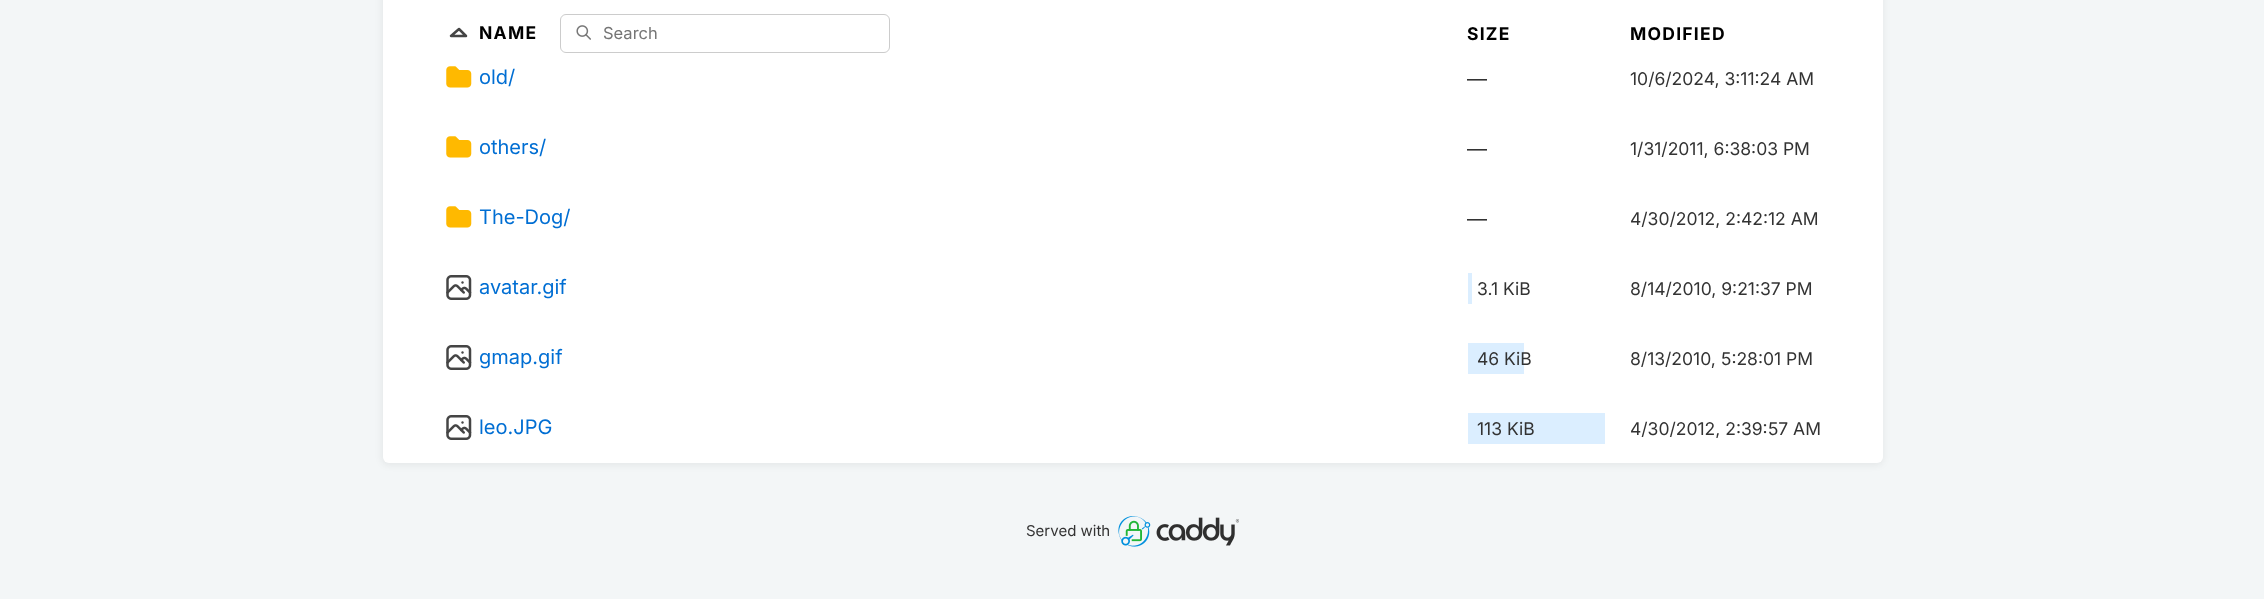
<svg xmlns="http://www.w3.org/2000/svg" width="2264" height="599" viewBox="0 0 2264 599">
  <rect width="100%" height="100%" fill="rgb(243,246,247)"/>
  <rect x="381" y="-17" width="1503" height="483" rx="8" fill="rgba(0,0,0,0.05)" filter="blur(3px)"/>
  <rect x="383" y="-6" width="1500" height="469" rx="6" fill="rgb(255,255,255)"/>
  <path d="M466 36L459 29L451 36H466" fill="none" stroke="rgb(69,69,69)" stroke-width="2.5" stroke-linecap="round" stroke-linejoin="round"/>
  <text x="479" y="39" font-family="Inter" font-size="17.5" font-weight="bold" letter-spacing="1.25" fill="rgb(0,0,0)">NAME</text>
  <image x="576" y="25" width="15" height="15" href="pic1.png"/>
  <rect x="560.5" y="14.5" width="329" height="38" rx="5.5" fill="none" stroke="rgb(204,204,204)"/>
  <text x="603" y="39" font-family="Inter" font-size="16.5" fill="rgb(117,117,117)">Search</text>
  <g font-family="Inter" font-size="17.5" font-weight="bold" letter-spacing="1.25" fill="rgb(0,0,0)">
    <text x="1467" y="40">SIZE</text>
    <text x="1630" y="40">MODIFIED</text>
  </g>
  <image x="446" y="66" width="26" height="22" href="pic2.png"/>
  <text x="479" y="84" font-family="Inter" font-size="20" fill="rgb(0,110,211)">old/</text>
  <text x="1467" y="86" font-family="Inter" font-size="20" fill="rgb(51,51,51)">—</text>
  <text x="1630" y="85" font-family="Inter" font-size="17.5" fill="rgb(51,51,51)">10/6/2024, 3:11:24 AM</text>
  <image x="446" y="136" width="26" height="22" href="pic2.png"/>
  <text x="479" y="154" font-family="Inter" font-size="20" fill="rgb(0,110,211)">others/</text>
  <text x="1467" y="156" font-family="Inter" font-size="20" fill="rgb(51,51,51)">—</text>
  <text x="1630" y="155" font-family="Inter" font-size="17.5" fill="rgb(51,51,51)">1/31/2011, 6:38:03 PM</text>
  <image x="446" y="206" width="26" height="22" href="pic2.png"/>
  <text x="479" y="224" font-family="Inter" font-size="20" fill="rgb(0,110,211)">The-Dog/</text>
  <text x="1467" y="226" font-family="Inter" font-size="20" fill="rgb(51,51,51)">—</text>
  <text x="1630" y="225" font-family="Inter" font-size="17.5" fill="rgb(51,51,51)">4/30/2012, 2:42:12 AM</text>
  <image x="446" y="275" width="26" height="25" href="pic3.png"/>
  <text x="479" y="294" font-family="Inter" font-size="20" fill="rgb(0,110,211)">avatar.gif</text>
  <rect x="1468" y="273" width="4" height="31" fill="rgb(219,238,255)"/>
  <g font-family="Inter" font-size="17.5" fill="rgb(51,51,51)">
    <text x="1477" y="295">3.1 KiB</text>
    <text x="1630" y="295">8/14/2010, 9:21:37 PM</text>
  </g>
  <image x="446" y="345" width="26" height="25" href="pic3.png"/>
  <text x="479" y="364" font-family="Inter" font-size="20" fill="rgb(0,110,211)">gmap.gif</text>
  <rect x="1468" y="343" width="56" height="31" fill="rgb(219,238,255)"/>
  <g font-family="Inter" font-size="17.5" fill="rgb(51,51,51)">
    <text x="1477" y="365">46 KiB</text>
    <text x="1630" y="365">8/13/2010, 5:28:01 PM</text>
  </g>
  <image x="446" y="415" width="26" height="25" href="pic3.png"/>
  <text x="479" y="434" font-family="Inter" font-size="20" fill="rgb(0,110,211)">leo.JPG</text>
  <rect x="1468" y="413" width="137" height="31" fill="rgb(219,238,255)"/>
  <g font-family="Inter" font-size="17.5" fill="rgb(51,51,51)">
    <text x="1477" y="435">113 KiB</text>
    <text x="1630" y="435">4/30/2012, 2:39:57 AM</text>
  </g>
  <text x="1026" y="536" font-family="Inter" font-size="15" fill="rgb(51,51,51)">Served with</text>
  <image x="1118" y="516" width="121" height="31" href="pic4.png"/>
</svg>
